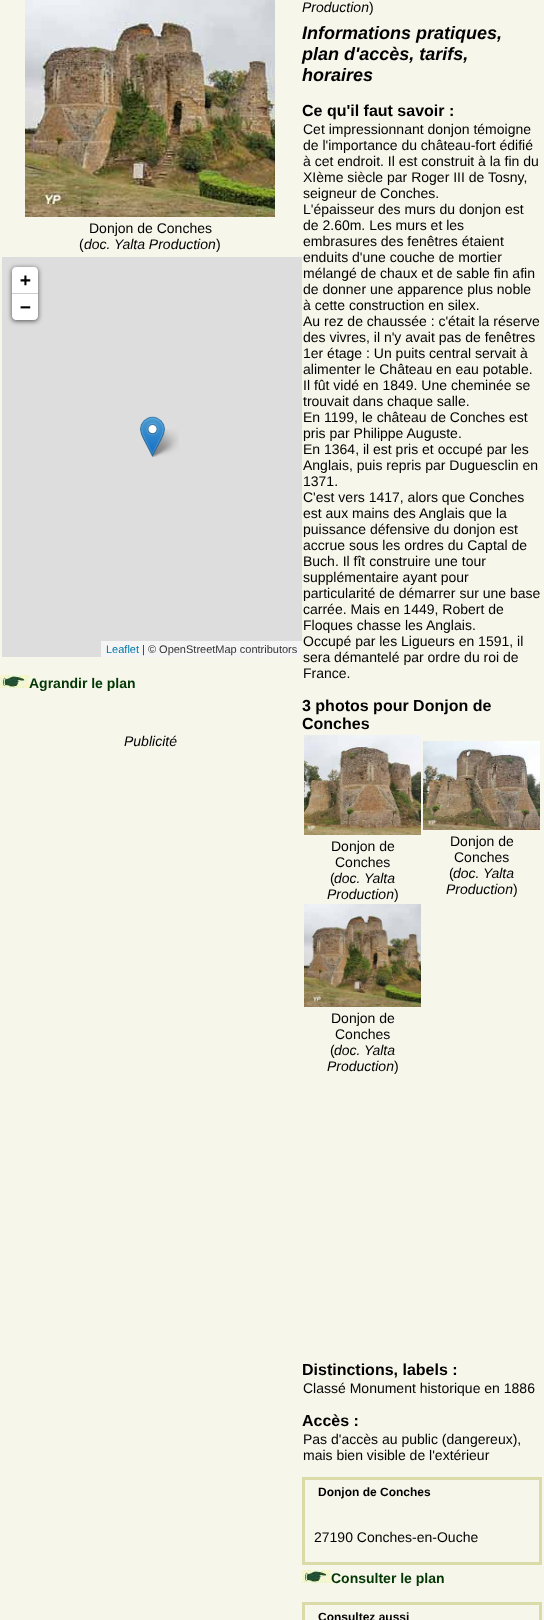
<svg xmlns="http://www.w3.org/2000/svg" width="544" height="1620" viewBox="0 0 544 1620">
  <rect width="100%" height="100%" fill="rgb(246,246,235)"/>
  <image x="25" y="0" width="250" height="217" href="pic1.png"/>
  <g font-family="Liberation Sans" font-size="14" fill="rgb(0,0,0)">
    <text x="89" y="233">Donjon de Conches</text>
    <text x="79" y="249">(</text>
  </g>
  <text x="84" y="249" font-family="Liberation Sans" font-size="14" font-style="italic" fill="rgb(0,0,0)">doc. Yalta Production</text>
  <text x="216" y="249" font-family="Liberation Sans" font-size="14" fill="rgb(0,0,0)">)</text>
  <rect x="2" y="257" width="300" height="400" fill="rgb(221,221,221)"/>
  <rect x="12" y="268" width="26" height="53" rx="4" fill="rgba(0,0,0,0.65)" filter="blur(2.5px)"/>
  <path d="M16 267H34C36 267 38 269 38 271V294H12V271C12 269 14 267 16 267Z" fill="rgb(255,255,255)"/>
  <rect x="12" y="293" width="26" height="1" fill="rgb(204,204,204)"/>
  <text x="20" y="286" font-family="DejaVu Sans Mono" font-size="18" font-weight="bold" fill="rgb(0,0,0)">+</text>
  <path d="M12 294H38V316C38 318 36 320 34 320H16C14 320 12 318 12 316Z" fill="rgb(255,255,255)"/>
  <text x="20" y="313" font-family="DejaVu Sans Mono" font-size="18" font-weight="bold" fill="rgb(0,0,0)">−</text>
  <rect x="101" y="641" width="201" height="16" fill="rgb(245,245,245)"/>
  <text x="106" y="653" font-family="Liberation Sans" font-size="11" fill="rgb(0,120,168)">Leaflet</text>
  <text x="142" y="653" font-family="Liberation Sans" font-size="11" fill="rgb(51,51,51)">| © OpenStreetMap contributors</text>
  <image x="150" y="429" width="29" height="28" href="pic3.png"/>
  <image x="140" y="416" width="25" height="41" href="pic2.png"/>
  <image x="0" y="675" width="29" height="13" href="pic4.png"/>
  <text x="29" y="688" font-family="Liberation Sans" font-size="14" font-weight="bold" fill="rgb(2,54,2)">Agrandir le plan</text>
  <g font-family="Liberation Sans" font-size="14" font-style="italic" fill="rgb(0,0,0)">
    <text x="124" y="746">Publicité</text>
    <text x="302" y="12">Production</text>
  </g>
  <text x="369" y="12" font-family="Liberation Sans" font-size="14" fill="rgb(0,0,0)">)</text>
  <g font-family="Liberation Sans" font-size="18" font-weight="bold" font-style="italic" fill="rgb(0,0,0)">
    <text>
      <tspan x="302" y="39">Informations pratiques,</tspan>
      <tspan x="302" y="60">plan d'accès, tarifs,</tspan>
      <tspan x="302" y="81">horaires</tspan>
    </text>
  </g>
  <text x="302" y="116" font-family="Liberation Sans" font-size="16" font-weight="bold" fill="rgb(0,0,0)">Ce qu'il faut savoir :</text>
  <g font-family="Liberation Sans" font-size="14" fill="rgb(0,0,0)">
    <text>
      <tspan x="303" y="134">Cet impressionnant donjon témoigne</tspan>
      <tspan x="303" y="150">de l'importance du château-fort édifié</tspan>
      <tspan x="303" y="166">à cet endroit. Il est construit à la fin du</tspan>
      <tspan x="303" y="182">XIème siècle par Roger III de Tosny,</tspan>
      <tspan x="303" y="198">seigneur de Conches.</tspan>
      <tspan x="303" y="214">L'épaisseur des murs du donjon est</tspan>
      <tspan x="303" y="230">de 2.60m. Les murs et les</tspan>
      <tspan x="303" y="246">embrasures des fenêtres étaient</tspan>
      <tspan x="303" y="262">enduits d'une couche de mortier</tspan>
      <tspan x="303" y="278">mélangé de chaux et de sable fin afin</tspan>
      <tspan x="303" y="294">de donner une apparence plus noble</tspan>
      <tspan x="303" y="310">à cette construction en silex.</tspan>
      <tspan x="303" y="326">Au rez de chaussée : c'était la réserve</tspan>
      <tspan x="303" y="342">des vivres, il n'y avait pas de fenêtres</tspan>
      <tspan x="303" y="358">1er étage : Un puits central servait à</tspan>
      <tspan x="303" y="374">alimenter le Château en eau potable.</tspan>
      <tspan x="303" y="390">Il fût vidé en 1849. Une cheminée se</tspan>
      <tspan x="303" y="406">trouvait dans chaque salle.</tspan>
      <tspan x="303" y="422">En 1199, le château de Conches est</tspan>
      <tspan x="303" y="438">pris par Philippe Auguste.</tspan>
      <tspan x="303" y="454">En 1364, il est pris et occupé par les</tspan>
      <tspan x="303" y="470">Anglais, puis repris par Duguesclin en</tspan>
      <tspan x="303" y="486">1371.</tspan>
      <tspan x="303" y="502">C'est vers 1417, alors que Conches</tspan>
      <tspan x="303" y="518">est aux mains des Anglais que la</tspan>
      <tspan x="303" y="534">puissance défensive du donjon est</tspan>
      <tspan x="303" y="550">accrue sous les ordres du Captal de</tspan>
      <tspan x="303" y="566">Buch. Il fît construire une tour</tspan>
      <tspan x="303" y="582">supplémentaire ayant pour</tspan>
      <tspan x="303" y="598">particularité de démarrer sur une base</tspan>
      <tspan x="303" y="614">carrée. Mais en 1449, Robert de</tspan>
      <tspan x="303" y="630">Floques chasse les Anglais.</tspan>
      <tspan x="303" y="646">Occupé par les Ligueurs en 1591, il</tspan>
      <tspan x="303" y="662">sera démantelé par ordre du roi de</tspan>
      <tspan x="303" y="678">France.</tspan>
    </text>
  </g>
  <g font-family="Liberation Sans" font-size="16" font-weight="bold" fill="rgb(0,0,0)">
    <text>
      <tspan x="302" y="711">3 photos pour Donjon de</tspan>
      <tspan x="302" y="729">Conches</tspan>
    </text>
  </g>
  <image x="304" y="735" width="117" height="100" href="pic5.png"/>
  <g font-family="Liberation Sans" font-size="14" fill="rgb(0,0,0)">
    <text x="331" y="851">Donjon de</text>
    <text x="335" y="867">Conches</text>
    <text x="330" y="883">(</text>
  </g>
  <g font-family="Liberation Sans" font-size="14" font-style="italic" fill="rgb(0,0,0)">
    <text x="334" y="883">doc. Yalta</text>
    <text x="327" y="899">Production</text>
  </g>
  <text x="394" y="899" font-family="Liberation Sans" font-size="14" fill="rgb(0,0,0)">)</text>
  <image x="423" y="741" width="117" height="89" href="pic6.png"/>
  <g font-family="Liberation Sans" font-size="14" fill="rgb(0,0,0)">
    <text x="450" y="846">Donjon de</text>
    <text x="454" y="862">Conches</text>
    <text x="449" y="878">(</text>
  </g>
  <g font-family="Liberation Sans" font-size="14" font-style="italic" fill="rgb(0,0,0)">
    <text x="453" y="878">doc. Yalta</text>
    <text x="446" y="894">Production</text>
  </g>
  <text x="513" y="894" font-family="Liberation Sans" font-size="14" fill="rgb(0,0,0)">)</text>
  <image x="304" y="904" width="117" height="103" href="pic7.png"/>
  <g font-family="Liberation Sans" font-size="14" fill="rgb(0,0,0)">
    <text x="331" y="1023">Donjon de</text>
    <text x="335" y="1039">Conches</text>
    <text x="330" y="1055">(</text>
  </g>
  <g font-family="Liberation Sans" font-size="14" font-style="italic" fill="rgb(0,0,0)">
    <text x="334" y="1055">doc. Yalta</text>
    <text x="327" y="1071">Production</text>
  </g>
  <text x="394" y="1071" font-family="Liberation Sans" font-size="14" fill="rgb(0,0,0)">)</text>
  <text x="302" y="1375" font-family="Liberation Sans" font-size="16" font-weight="bold" fill="rgb(0,0,0)">Distinctions, labels :</text>
  <text x="303" y="1393" font-family="Liberation Sans" font-size="14" fill="rgb(0,0,0)">Classé Monument historique en 1886</text>
  <text x="302" y="1426" font-family="Liberation Sans" font-size="16" font-weight="bold" fill="rgb(0,0,0)">Accès :</text>
  <g font-family="Liberation Sans" font-size="14" fill="rgb(0,0,0)">
    <text>
      <tspan x="303" y="1444">Pas d'accès au public (dangereux),</tspan>
      <tspan x="303" y="1460">mais bien visible de l'extérieur</tspan>
    </text>
  </g>
  <rect x="303.5" y="1478.5" width="237" height="85" fill="none" stroke="rgb(219,219,170)" stroke-width="3"/>
  <text x="318" y="1496" font-family="Liberation Sans" font-size="12" font-weight="bold" fill="rgb(0,0,0)">Donjon de Conches</text>
  <text x="314" y="1542" font-family="Liberation Sans" font-size="14" fill="rgb(0,0,0)">27190 Conches-en-Ouche</text>
  <image x="302" y="1570" width="29" height="13" href="pic4.png"/>
  <text x="331" y="1583" font-family="Liberation Sans" font-size="14" font-weight="bold" fill="rgb(2,54,2)">Consulter le plan</text>
  <rect x="303.5" y="1603.5" width="237" height="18" fill="none" stroke="rgb(219,219,170)" stroke-width="3"/>
  <text x="318" y="1621" font-family="Liberation Sans" font-size="12" font-weight="bold" fill="rgb(0,0,0)">Consultez aussi</text>
</svg>
